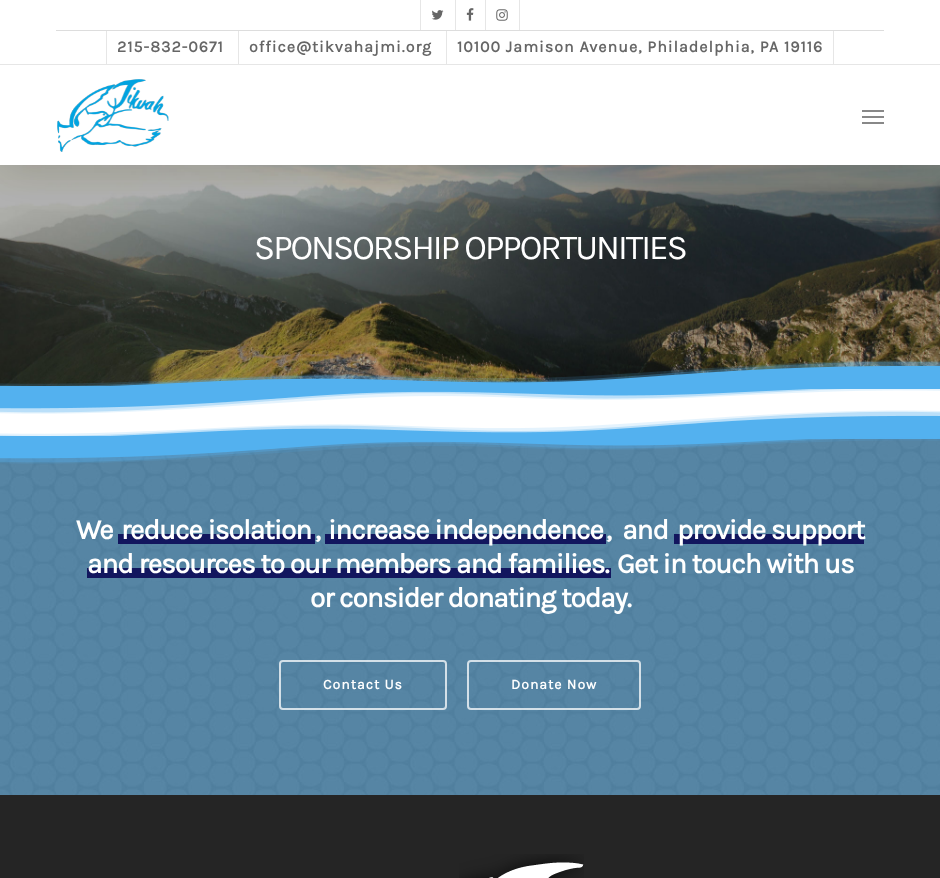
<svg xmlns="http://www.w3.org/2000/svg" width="940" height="878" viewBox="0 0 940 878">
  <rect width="100%" height="100%" fill="rgb(255,255,255)"/>
  <image x="0" y="165" width="940" height="221" href="pic5.png"/>
  <rect x="0" y="3" width="940" height="165" fill="rgba(0,0,0,0.15)" filter="blur(22.5px)"/>
  <rect x="0" y="0" width="940" height="165" fill="rgb(255,255,255)"/>
  <rect x="0" y="64" width="940" height="1" fill="rgb(230,230,230)"/>
  <rect x="420" y="0" width="1" height="30" fill="rgb(230,230,230)"/>
  <image x="431" y="10" width="13" height="10" href="pic1.png"/>
  <rect x="455" y="0" width="1" height="30" fill="rgb(230,230,230)"/>
  <image x="466" y="8" width="8" height="13" href="pic2.png"/>
  <rect x="519" y="0" width="1" height="30" fill="rgb(230,230,230)"/>
  <rect x="485" y="0" width="1" height="30" fill="rgb(230,230,230)"/>
  <image x="496" y="9" width="12" height="12" href="pic3.png"/>
  <rect x="56" y="30" width="828" height="1" fill="rgb(221,221,221)"/>
  <rect x="106" y="31" width="1" height="33" fill="rgb(230,230,230)"/>
  <text x="117" y="52" font-family="Karla" font-size="16" font-weight="bold" letter-spacing="1" fill="rgb(102,102,102)">215-832-0671</text>
  <rect x="238" y="31" width="1" height="33" fill="rgb(230,230,230)"/>
  <text x="249" y="52" font-family="Karla" font-size="16" font-weight="bold" letter-spacing="1" fill="rgb(102,102,102)">office@tikvahajmi.org</text>
  <rect x="833" y="31" width="1" height="33" fill="rgb(230,230,230)"/>
  <rect x="446" y="31" width="1" height="33" fill="rgb(230,230,230)"/>
  <text x="457" y="52" font-family="Karla" font-size="16" font-weight="bold" letter-spacing="1" fill="rgb(102,102,102)">10100 Jamison Avenue, Philadelphia, PA 19116</text>
  <image x="57" y="79" width="112" height="73" href="pic4.png"/>
  <rect x="862" y="110" width="22" height="2" fill="rgb(136,136,136)"/>
  <rect x="862" y="122" width="22" height="2" fill="rgb(136,136,136)"/>
  <rect x="862" y="116" width="22" height="2" fill="rgb(136,136,136)"/>
  <text x="254" y="259" font-family="Karla" font-size="35" letter-spacing="-2" fill="rgb(255,255,255)">SPONSORSHIP OPPORTUNITIES</text>
  <image x="0" y="386" width="940" height="28" href="pic7.png"/>
  <image x="0" y="360" width="940" height="29" href="pic6.png"/>
  <image x="0" y="410" width="940" height="29" href="pic8.png"/>
  <image x="0" y="439" width="940" height="356" href="pic10.png"/>
  <rect x="0" y="439" width="940" height="356" fill="rgba(83,177,239,0.5)"/>
  <image x="0" y="436" width="940" height="28" href="pic9.png"/>
  <text x="76" y="539" font-family="Karla" font-size="28" font-weight="bold" letter-spacing="-1" fill="rgb(255,255,255)">We</text>
  <rect x="118" y="534" width="197" height="10" fill="rgb(18,22,94)"/>
  <g font-family="Karla" font-size="28" font-weight="bold" letter-spacing="-1" fill="rgb(255,255,255)">
    <text x="121" y="539">reduce isolation</text>
    <text x="315" y="539">,</text>
  </g>
  <rect x="325" y="534" width="281" height="10" fill="rgb(18,22,94)"/>
  <g font-family="Karla" font-size="28" font-weight="bold" letter-spacing="-1" fill="rgb(255,255,255)">
    <text x="328" y="539">increase independence</text>
    <text x="606" y="539" xml:space="preserve">,  and</text>
  </g>
  <rect x="674" y="534" width="190" height="10" fill="rgb(18,22,94)"/>
  <text x="677" y="539" font-family="Karla" font-size="28" font-weight="bold" letter-spacing="-1" fill="rgb(255,255,255)">provide support</text>
  <rect x="87" y="568" width="524" height="10" fill="rgb(18,22,94)"/>
  <g font-family="Karla" font-size="28" font-weight="bold" letter-spacing="-1" fill="rgb(255,255,255)">
    <text x="87" y="573">and resources to our members and families.</text>
    <text x="617" y="573">Get in touch with us</text>
    <text x="310" y="607">or consider donating today.</text>
  </g>
  <rect x="280" y="661" width="166" height="48" rx="3" fill="none" stroke="rgba(255,255,255,0.75)" stroke-width="2"/>
  <text x="323" y="689" font-family="Karla" font-size="14" font-weight="bold" letter-spacing="1" fill="rgb(255,255,255)">Contact Us</text>
  <rect x="468" y="661" width="172" height="48" rx="3" fill="none" stroke="rgba(255,255,255,0.75)" stroke-width="2"/>
  <text x="511" y="689" font-family="Karla" font-size="14" font-weight="bold" letter-spacing="1" fill="rgb(255,255,255)">Donate Now</text>
  <rect x="0" y="795" width="940" height="83" fill="rgb(37,37,37)"/>
  <image x="459" y="854" width="125" height="24" href="pic11.png"/>
</svg>
